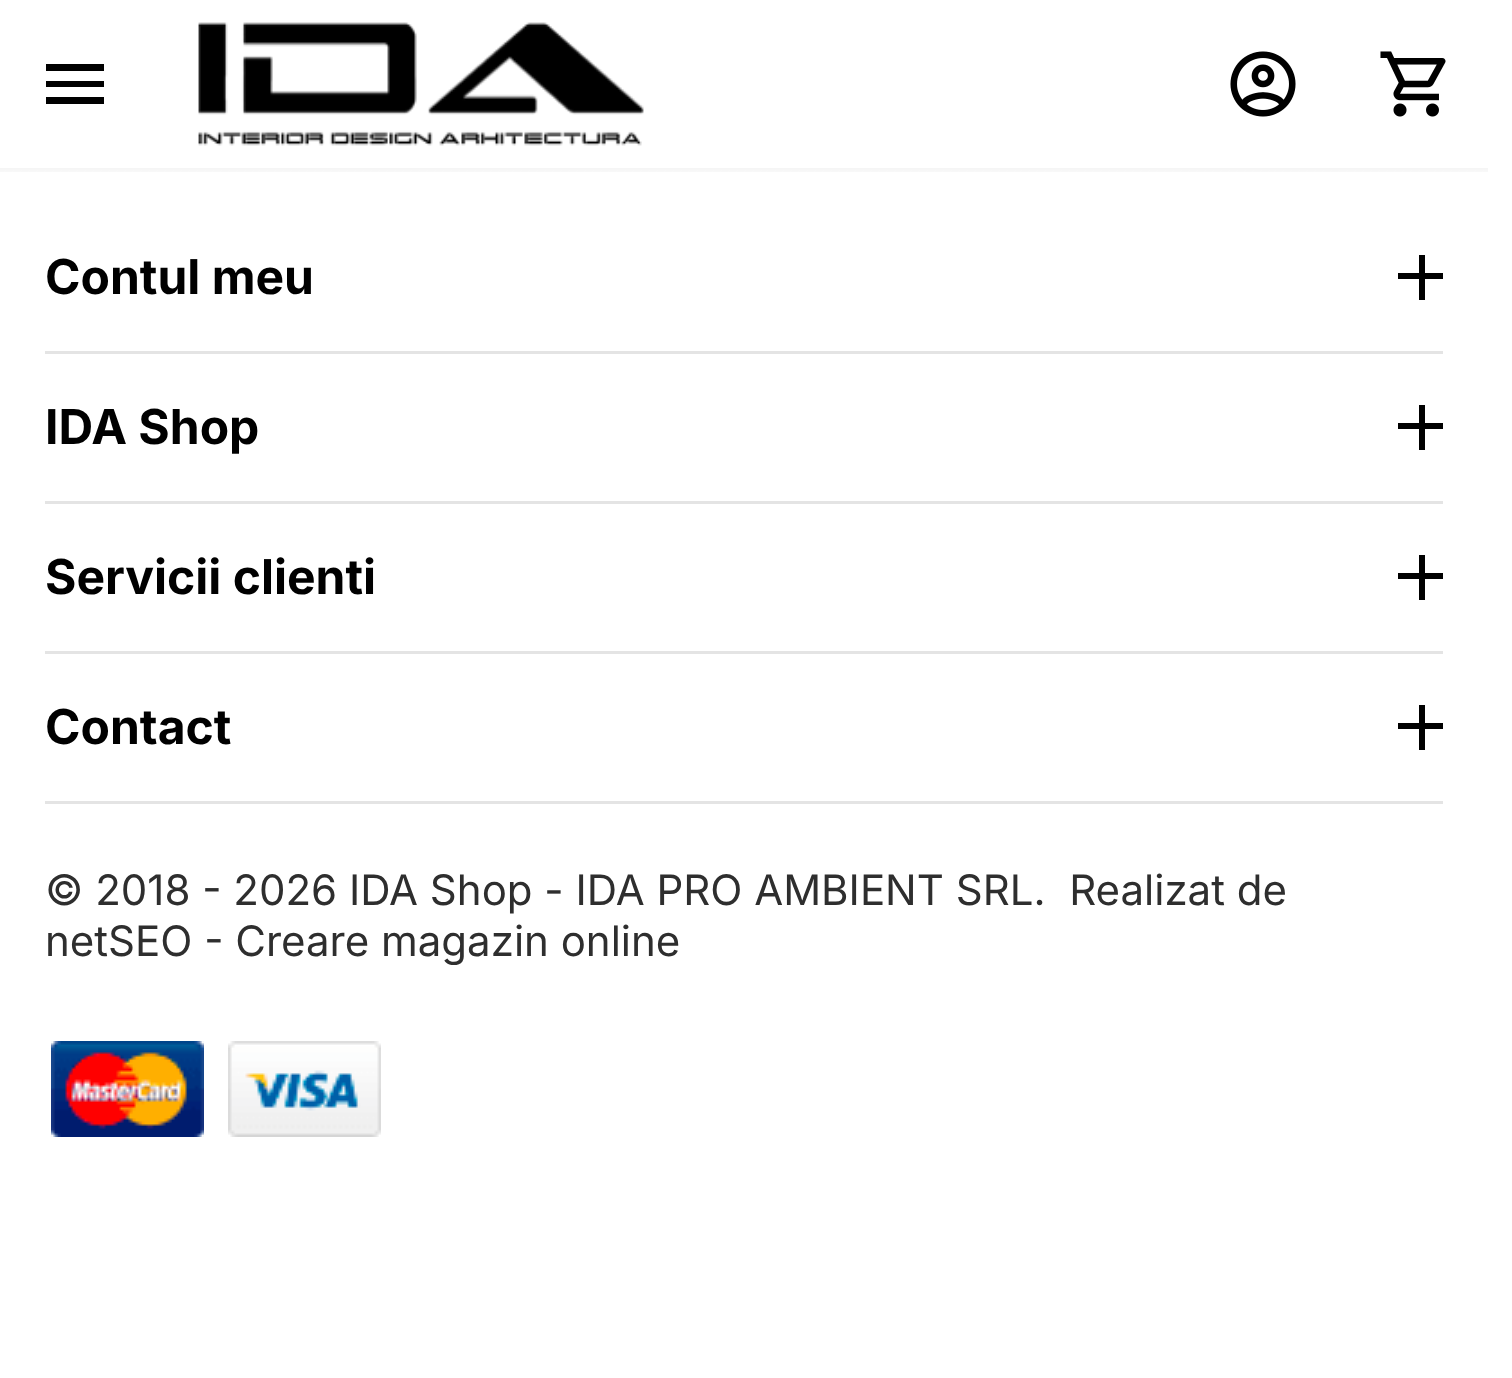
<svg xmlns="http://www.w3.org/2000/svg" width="1512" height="1378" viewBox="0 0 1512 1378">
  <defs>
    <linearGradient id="g1" gradientUnits="userSpaceOnUse" x1="744" y1="156" x2="744" y2="177"><stop offset="0" stop-color="rgb(0,0,0)" stop-opacity="0.1"/><stop offset="1" stop-color="rgb(0,0,0)" stop-opacity="0"/></linearGradient>
  </defs>
  <rect width="100%" height="100%" fill="rgb(255,255,255)"/>
  <path d="M46 104H104V97H46ZM46 87H104V81H46ZM46 64V71H104V64Z" fill="rgb(0,0,0)"/>
  <image x="198" y="22" width="446" height="124" href="pic1.png"/>
  <image x="1230" y="51" width="66" height="66" href="pic2.png"/>
  <image x="1380" y="51" width="66" height="66" href="pic3.png"/>
  <rect x="0" y="168" width="1488" height="4" fill="url(#g1)"/>
  <rect x="45" y="351" width="1398" height="3" fill="rgb(228,228,228)"/>
  <text x="45" y="294" font-family="Inter" font-size="48" font-weight="bold" fill="rgb(0,0,0)">Contul meu</text>
  <rect x="1419" y="255" width="6" height="45" fill="rgb(0,0,0)"/>
  <rect x="1398" y="273" width="45" height="6" fill="rgb(0,0,0)"/>
  <rect x="45" y="501" width="1398" height="3" fill="rgb(228,228,228)"/>
  <text x="45" y="444" font-family="Inter" font-size="48" font-weight="bold" fill="rgb(0,0,0)">IDA Shop</text>
  <rect x="1419" y="405" width="6" height="45" fill="rgb(0,0,0)"/>
  <rect x="1398" y="423" width="45" height="6" fill="rgb(0,0,0)"/>
  <rect x="45" y="651" width="1398" height="3" fill="rgb(228,228,228)"/>
  <text x="45" y="594" font-family="Inter" font-size="48" font-weight="bold" fill="rgb(0,0,0)">Servicii clienti</text>
  <rect x="1419" y="555" width="6" height="45" fill="rgb(0,0,0)"/>
  <rect x="1398" y="573" width="45" height="6" fill="rgb(0,0,0)"/>
  <rect x="45" y="801" width="1398" height="3" fill="rgb(228,228,228)"/>
  <text x="45" y="744" font-family="Inter" font-size="48" font-weight="bold" fill="rgb(0,0,0)">Contact</text>
  <rect x="1419" y="705" width="6" height="45" fill="rgb(0,0,0)"/>
  <rect x="1398" y="723" width="45" height="6" fill="rgb(0,0,0)"/>
  <g font-family="Inter" font-size="42" fill="rgb(46,46,46)">
    <text xml:space="preserve"><tspan x="45" y="905">© 2018 - 2026 IDA Shop - IDA PRO AMBIENT SRL.  Realizat de</tspan><tspan x="45" y="956">netSEO - Creare magazin online</tspan></text>
  </g>
  <image x="51" y="1041" width="153" height="96" href="pic4.png"/>
  <image x="228" y="1041" width="153" height="96" href="pic5.png"/>
</svg>
